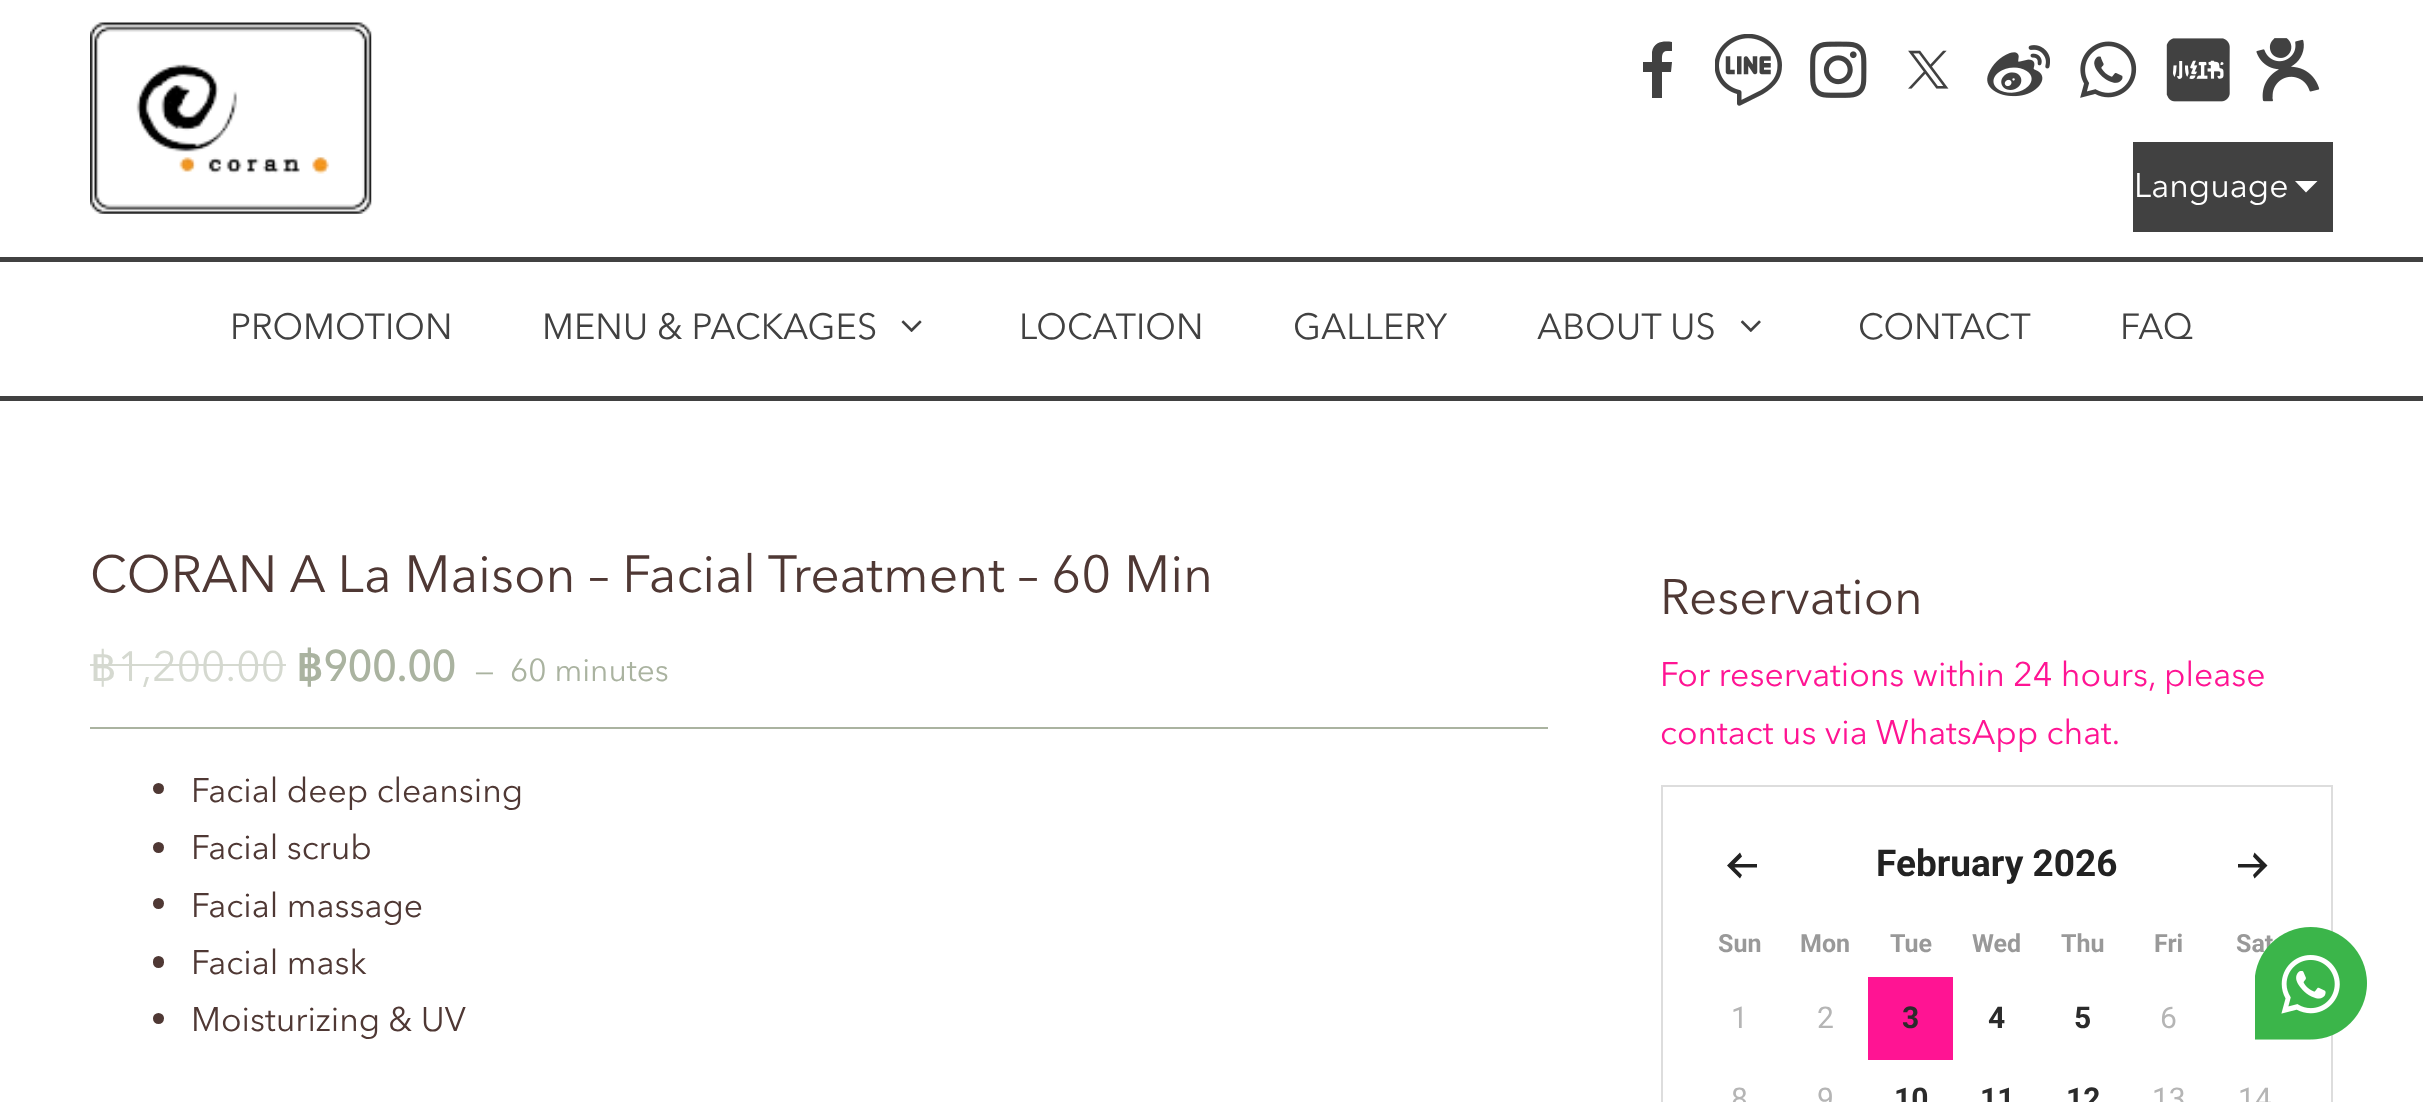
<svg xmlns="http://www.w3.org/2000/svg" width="2423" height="1102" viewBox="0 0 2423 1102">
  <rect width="100%" height="100%" fill="rgb(255,255,255)"/>
  <image x="90" y="22" width="282" height="192" href="pic1.png"/>
  <path d="M1667 51H1672V42C1664 41 1654 41 1652 52V62H1643V72H1652V98H1662V72H1671L1672 62H1662C1662 58 1661 51 1667 51Z" fill="rgb(65,65,65)"/>
  <image x="1715" y="34" width="67" height="72" href="pic2.png"/>
  <image x="1810" y="41" width="57" height="57" href="pic3.png"/>
  <image x="1908" y="50" width="41" height="39" href="pic4.png"/>
  <image x="1987" y="45" width="63" height="52" href="pic5.png"/>
  <image x="2080" y="41" width="57" height="57" href="pic6.png"/>
  <image x="2166" y="38" width="64" height="64" href="pic7.png"/>
  <image x="2256" y="38" width="64" height="64" href="pic8.png"/>
  <rect x="2133" y="142" width="200" height="90" fill="rgb(65,65,65)"/>
  <text x="2134" y="197" font-family="Avenir Next" font-size="33.75" fill="rgb(255,255,255)">Language</text>
  <path d="M2295 181H2317.5L2306 192.5Z" fill="rgb(255,255,255)"/>
  <rect x="0" y="257" width="2423" height="5" fill="rgb(65,65,65)"/>
  <rect x="0" y="396" width="2423" height="5" fill="rgb(65,65,65)"/>
  <g font-family="Avenir Next" font-size="36" fill="rgb(65,65,65)">
    <text x="230" y="339">PROMOTION</text>
    <text x="542" y="339">MENU &amp; PACKAGES</text>
  </g>
  <image x="901" y="320" width="21" height="12" href="pic9.png"/>
  <g font-family="Avenir Next" font-size="36" fill="rgb(65,65,65)">
    <text x="1019" y="339">LOCATION</text>
    <text x="1293" y="339">GALLERY</text>
    <text x="1537" y="339">ABOUT US</text>
  </g>
  <image x="1740" y="320" width="21" height="12" href="pic10.png"/>
  <g font-family="Avenir Next" font-size="36" fill="rgb(65,65,65)">
    <text x="1858" y="339">CONTACT</text>
    <text x="2120" y="339">FAQ</text>
  </g>
  <text x="90" y="592" font-family="Avenir Next" font-size="51.75" fill="rgb(79,56,52)">CORAN A La Maison – Facial Treatment – 60 Min</text>
  <rect x="90" y="727" width="1458" height="2" fill="rgb(170,179,160)"/>
  <text x="90" y="681" font-family="DejaVu Sans" font-size="42" fill="rgb(213,217,208)">฿</text>
  <rect x="90" y="664" width="27" height="2" fill="rgb(213,217,208)"/>
  <rect x="117" y="664" width="169" height="2" fill="rgb(213,217,208)"/>
  <text x="117" y="681" font-family="Avenir Next" font-size="42" fill="rgb(213,217,208)">1,200.00</text>
  <text x="296" y="681" font-family="DejaVu Sans" font-size="42" font-weight="bold" fill="rgb(170,179,160)">฿</text>
  <text x="323" y="681" font-family="Avenir Next" font-size="42" font-weight="bold" fill="rgb(170,179,160)">900.00</text>
  <g font-family="Avenir Next" font-size="31.5" fill="rgb(170,179,160)">
    <text x="475" y="681">—</text>
    <text x="510" y="681">60 minutes</text>
  </g>
  <circle cx="158.5" cy="788.5" r="5.5" fill="rgb(79,56,52)"/>
  <text x="191" y="802" font-family="Avenir Next" font-size="33.75" fill="rgb(79,56,52)">Facial deep cleansing</text>
  <circle cx="158.5" cy="847.5" r="5.5" fill="rgb(79,56,52)"/>
  <text x="191" y="859" font-family="Avenir Next" font-size="33.75" fill="rgb(79,56,52)">Facial scrub</text>
  <circle cx="158.5" cy="903.5" r="5.5" fill="rgb(79,56,52)"/>
  <text x="191" y="917" font-family="Avenir Next" font-size="33.75" fill="rgb(79,56,52)">Facial massage</text>
  <rect x="153" y="956" width="11" height="12" rx="5.5" fill="rgb(79,56,52)"/>
  <text x="191" y="974" font-family="Avenir Next" font-size="33.75" fill="rgb(79,56,52)">Facial mask</text>
  <circle cx="158.5" cy="1018.5" r="5.5" fill="rgb(79,56,52)"/>
  <text x="191" y="1031" font-family="Avenir Next" font-size="33.75" fill="rgb(79,56,52)">Moisturizing &amp; UV</text>
  <text x="1660" y="614" font-family="Avenir Next" font-size="49.5" fill="rgb(79,56,52)">Reservation</text>
  <g font-family="Avenir Next" font-size="33.75" fill="rgb(255,20,147)">
    <text>
      <tspan x="1660" y="686">For reservations within 24 hours, please</tspan>
      <tspan x="1660" y="744">contact us via WhatsApp chat.</tspan>
    </text>
  </g>
  <rect x="1662" y="786" width="670" height="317" fill="none" stroke="rgb(221,221,221)" stroke-width="2"/>
  <path d="M1757 864V867.5H1734.5L1742 875L1740 878.5L1727 865.5L1740 852.5L1742 856.5L1734.5 864Z" fill="rgb(34,34,34)"/>
  <text x="1876" y="876" font-family="Roboto" font-size="37" font-weight="bold" fill="rgb(34,34,34)">February 2026</text>
  <path d="M2238 867.5V864H2260L2253 856.5L2254.5 852.5L2267.5 865.5L2254.5 878.5L2253 875L2260 867.5Z" fill="rgb(34,34,34)"/>
  <g font-family="Roboto" font-size="25" font-weight="bold" fill="rgb(153,153,153)">
    <text x="1718" y="952">Sun</text>
    <text x="1800" y="952">Mon</text>
    <text x="1890" y="952">Tue</text>
    <text x="1972" y="952">Wed</text>
    <text x="2061" y="952">Thu</text>
    <text x="2154" y="952">Fri</text>
    <text x="2236" y="952">Sat</text>
  </g>
  <g font-family="Roboto" font-size="30" fill="rgb(181,181,181)">
    <text x="1731" y="1028">1</text>
    <text x="1817" y="1028">2</text>
  </g>
  <rect x="1868" y="977" width="85" height="83" fill="rgb(255,20,147)"/>
  <g font-family="Roboto" font-size="30" font-weight="bold" fill="rgb(43,43,43)">
    <text x="1902" y="1028">3</text>
    <text x="1988" y="1028">4</text>
    <text x="2074" y="1028">5</text>
  </g>
  <g font-family="Roboto" font-size="30" fill="rgb(181,181,181)">
    <text x="2160" y="1028">6</text>
    <text x="1731" y="1109">8</text>
    <text x="1817" y="1109">9</text>
  </g>
  <g font-family="Roboto" font-size="30" font-weight="bold" fill="rgb(43,43,43)">
    <text x="1894" y="1109">10</text>
    <text x="1980" y="1109">11</text>
    <text x="2066" y="1109">12</text>
  </g>
  <g font-family="Roboto" font-size="30" fill="rgb(181,181,181)">
    <text x="2152" y="1109">13</text>
    <text x="2238" y="1109">14</text>
  </g>
  <image x="2255" y="927" width="112" height="113" href="pic11.png"/>
</svg>
